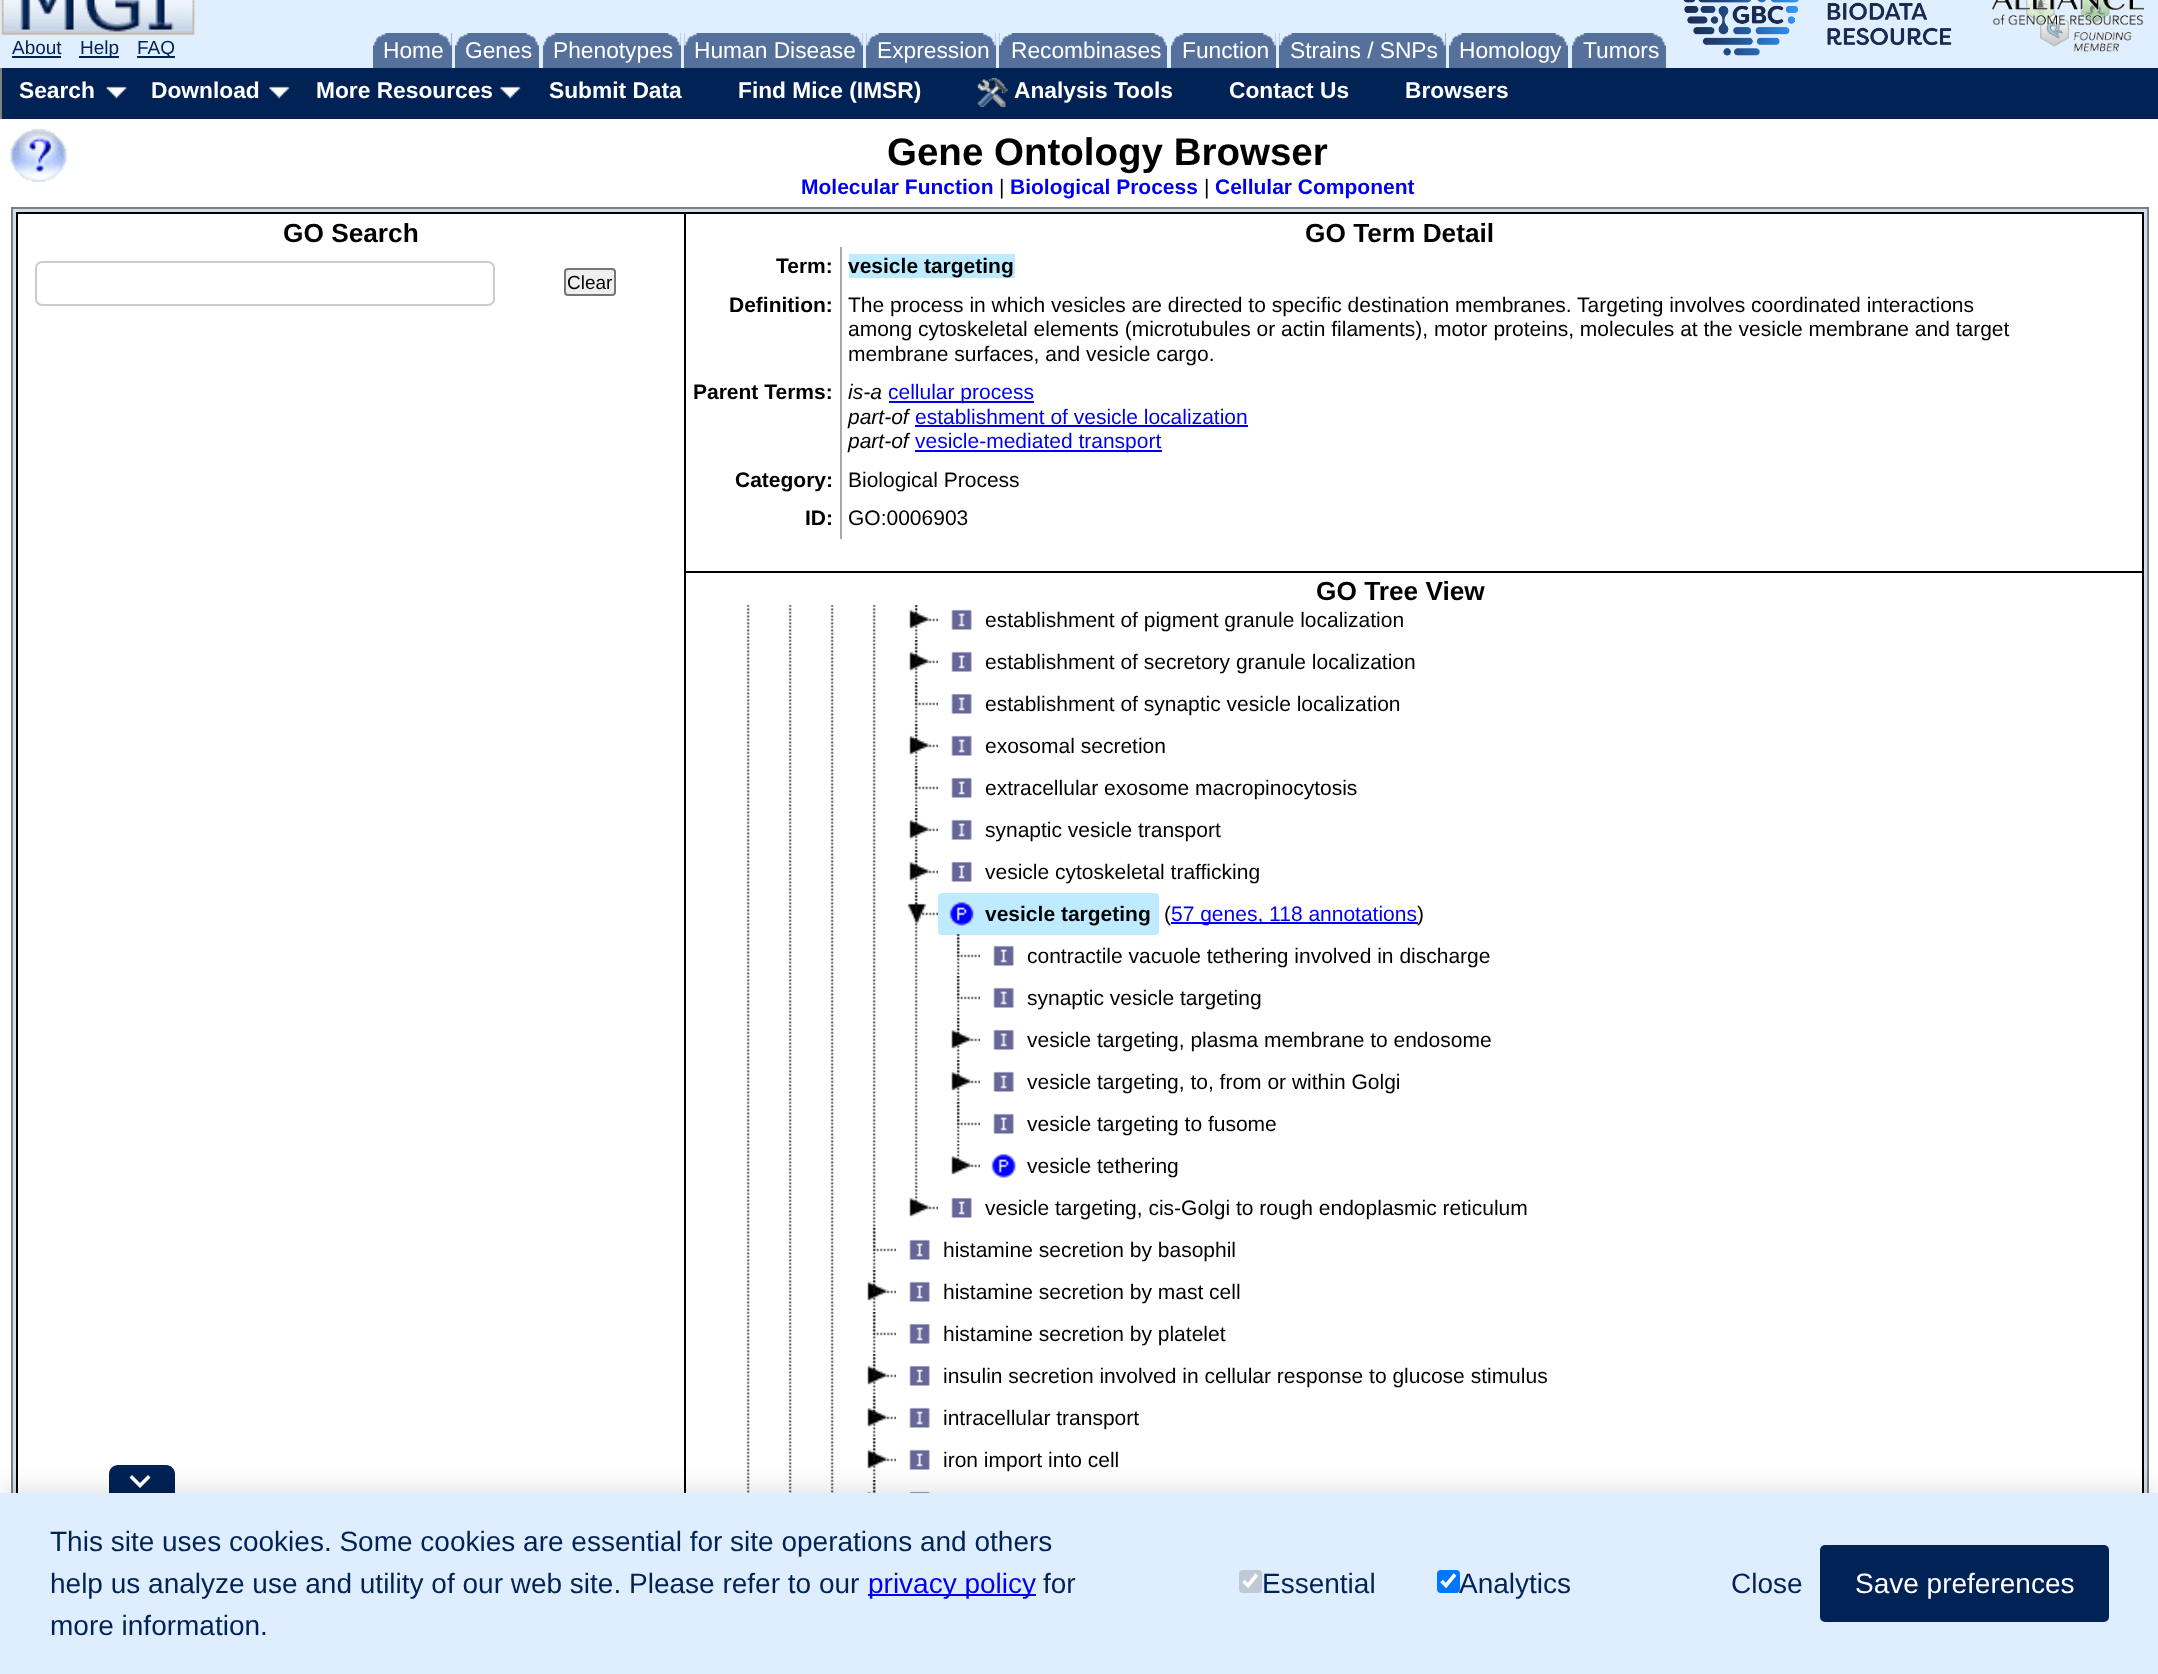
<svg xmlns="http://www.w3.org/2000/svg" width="2158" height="1674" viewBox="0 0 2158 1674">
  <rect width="100%" height="100%" fill="rgb(255,255,255)"/>
  <rect x="0" y="0" width="2158" height="68" fill="rgb(223,239,255)"/>
  <image x="1" y="0" width="194" height="35" href="pic1.png"/>
  <text x="12" y="54" font-family="Liberation Sans" font-size="19" fill="rgb(0,34,85)">About</text>
  <rect x="12" y="56" width="49" height="2" fill="rgb(0,34,85)"/>
  <rect x="79" y="56" width="40" height="2" fill="rgb(0,34,85)"/>
  <text x="80" y="54" font-family="Liberation Sans" font-size="19" fill="rgb(0,34,85)">Help</text>
  <rect x="137" y="56" width="38" height="2" fill="rgb(0,34,85)"/>
  <text x="137" y="54" font-family="Liberation Sans" font-size="19" fill="rgb(0,34,85)">FAQ</text>
  <rect x="373" y="33" width="79" height="35" fill="rgb(84,112,155)"/>
  <image x="373" y="33" width="13" height="13" href="pic2.png"/>
  <image x="438" y="33" width="14" height="13" href="pic3.png"/>
  <text x="383" y="58" font-family="Liberation Sans" font-size="22.75" fill="rgb(255,255,255)">Home</text>
  <rect x="455" y="33" width="84" height="35" fill="rgb(84,112,155)"/>
  <image x="455" y="33" width="13" height="13" href="pic4.png"/>
  <image x="526" y="33" width="13" height="13" href="pic5.png"/>
  <text x="465" y="58" font-family="Liberation Sans" font-size="22.75" fill="rgb(255,255,255)">Genes</text>
  <rect x="543" y="33" width="138" height="35" fill="rgb(84,112,155)"/>
  <image x="543" y="33" width="13" height="13" href="pic6.png"/>
  <image x="668" y="33" width="13" height="13" href="pic7.png"/>
  <text x="553" y="58" font-family="Liberation Sans" font-size="22.75" fill="rgb(255,255,255)">Phenotypes</text>
  <rect x="684" y="33" width="179" height="35" fill="rgb(84,112,155)"/>
  <image x="684" y="33" width="13" height="13" href="pic8.png"/>
  <image x="850" y="33" width="13" height="13" href="pic7.png"/>
  <text x="694" y="58" font-family="Liberation Sans" font-size="22.75" fill="rgb(255,255,255)">Human Disease</text>
  <rect x="866" y="33" width="130" height="35" fill="rgb(84,112,155)"/>
  <image x="866" y="33" width="13" height="13" href="pic8.png"/>
  <image x="983" y="33" width="13" height="13" href="pic7.png"/>
  <text x="877" y="58" font-family="Liberation Sans" font-size="22.75" fill="rgb(255,255,255)">Expression</text>
  <rect x="999" y="33" width="168" height="35" fill="rgb(84,112,155)"/>
  <image x="999" y="33" width="13" height="13" href="pic9.png"/>
  <image x="1154" y="33" width="13" height="13" href="pic10.png"/>
  <text x="1011" y="58" font-family="Liberation Sans" font-size="22.75" fill="rgb(255,255,255)">Recombinases</text>
  <rect x="1171" y="33" width="105" height="35" fill="rgb(84,112,155)"/>
  <image x="1171" y="33" width="13" height="13" href="pic2.png"/>
  <image x="1263" y="33" width="13" height="13" href="pic7.png"/>
  <text x="1182" y="58" font-family="Liberation Sans" font-size="22.75" fill="rgb(255,255,255)">Function</text>
  <rect x="1279" y="33" width="167" height="35" fill="rgb(84,112,155)"/>
  <image x="1279" y="33" width="13" height="13" href="pic8.png"/>
  <image x="1432" y="33" width="14" height="13" href="pic3.png"/>
  <text x="1290" y="58" font-family="Liberation Sans" font-size="22.75" fill="rgb(255,255,255)">Strains / SNPs</text>
  <rect x="1449" y="33" width="119" height="35" fill="rgb(84,112,155)"/>
  <image x="1449" y="33" width="13" height="13" href="pic4.png"/>
  <image x="1555" y="33" width="13" height="13" href="pic5.png"/>
  <text x="1459" y="58" font-family="Liberation Sans" font-size="22.75" fill="rgb(255,255,255)">Homology</text>
  <rect x="1572" y="33" width="94" height="35" fill="rgb(84,112,155)"/>
  <image x="1572" y="33" width="13" height="13" href="pic6.png"/>
  <image x="1653" y="33" width="13" height="13" href="pic11.png"/>
  <text x="1583" y="58" font-family="Liberation Sans" font-size="22.75" fill="rgb(255,255,255)">Tumors</text>
  <image x="1683" y="0" width="269" height="56" href="pic12.png"/>
  <image x="1991" y="0" width="154" height="52" href="pic13.png"/>
  <rect x="2" y="68" width="2156" height="51" fill="rgb(0,34,85)"/>
  <rect x="0" y="68" width="2" height="51" fill="rgb(128,128,128)"/>
  <image x="106" y="86" width="21" height="13" href="pic14.png"/>
  <text x="19" y="98" font-family="Liberation Sans" font-size="22.75" font-weight="bold" fill="rgb(255,255,255)">Search</text>
  <image x="269" y="86" width="21" height="13" href="pic15.png"/>
  <text x="151" y="98" font-family="Liberation Sans" font-size="22.75" font-weight="bold" fill="rgb(255,255,255)">Download</text>
  <image x="500" y="86" width="21" height="13" href="pic15.png"/>
  <g font-family="Liberation Sans" font-size="22.75" font-weight="bold" fill="rgb(255,255,255)">
    <text x="316" y="98">More Resources</text>
    <text x="549" y="98">Submit Data</text>
    <text x="738" y="98">Find Mice (IMSR)</text>
  </g>
  <image x="977" y="77" width="31" height="31" href="pic16.png"/>
  <g font-family="Liberation Sans" font-size="22.75" font-weight="bold" fill="rgb(255,255,255)">
    <text x="1014" y="98">Analysis Tools</text>
    <text x="1229" y="98">Contact Us</text>
    <text x="1405" y="98">Browsers</text>
  </g>
  <image x="10" y="129" width="57" height="53" href="pic17.png"/>
  <text x="887" y="165" font-family="Liberation Sans" font-size="38.5" font-weight="bold" fill="rgb(0,0,1)">Gene Ontology Browser</text>
  <text x="801" y="194" font-family="Liberation Sans" font-size="21" font-weight="bold" fill="rgb(0,0,238)">Molecular Function</text>
  <text x="999" y="194" font-family="Liberation Sans" font-size="21" fill="rgb(0,0,1)">|</text>
  <text x="1010" y="194" font-family="Liberation Sans" font-size="21" font-weight="bold" fill="rgb(0,0,238)">Biological Process</text>
  <text x="1204" y="194" font-family="Liberation Sans" font-size="21" fill="rgb(0,0,1)">|</text>
  <text x="1215" y="194" font-family="Liberation Sans" font-size="21" font-weight="bold" fill="rgb(0,0,238)">Cellular Component</text>
  <rect x="13" y="209" width="2134" height="1284" fill="rgb(208,224,240)"/>
  <rect x="12" y="208" width="2136" height="1301" fill="none" stroke="rgb(127,127,127)" stroke-width="2"/>
  <rect x="18" y="214" width="2124" height="1279" fill="rgb(255,255,255)"/>
  <rect x="684" y="212" width="1460" height="2" fill="rgb(0,0,0)"/>
  <rect x="684" y="571" width="1460" height="2" fill="rgb(0,0,0)"/>
  <rect x="684" y="571" width="2" height="922" fill="rgb(0,0,0)"/>
  <rect x="684" y="212" width="2" height="360" fill="rgb(0,0,0)"/>
  <rect x="16" y="212" width="670" height="2" fill="rgb(0,0,0)"/>
  <rect x="16" y="212" width="2" height="1281" fill="rgb(0,0,0)"/>
  <text x="283" y="242" font-family="Liberation Sans" font-size="26.25" font-weight="bold" fill="rgb(0,0,1)">GO Search</text>
  <rect x="36" y="262" width="458" height="43" rx="6" fill="none" stroke="rgb(204,204,204)" stroke-width="2"/>
  <rect x="565" y="269" width="50" height="26" rx="3" fill="rgb(239,239,239)" stroke="rgb(118,118,118)" stroke-width="2"/>
  <text x="567" y="289" font-family="Liberation Sans" font-size="19" fill="rgb(0,0,1)">Clear</text>
  <rect x="2142" y="571" width="2" height="922" fill="rgb(0,0,0)"/>
  <rect x="2142" y="212" width="2" height="360" fill="rgb(0,0,0)"/>
  <text x="1305" y="242" font-family="Liberation Sans" font-size="26.25" font-weight="bold" fill="rgb(0,0,1)">GO Term Detail</text>
  <text x="776" y="273" font-family="Liberation Sans" font-size="21" font-weight="bold" fill="rgb(0,0,1)">Term:</text>
  <rect x="849" y="254" width="166" height="24" fill="rgb(190,235,255)"/>
  <g font-family="Liberation Sans" font-size="21" font-weight="bold" fill="rgb(0,0,1)">
    <text x="848" y="273">vesicle targeting</text>
    <text x="729" y="312">Definition:</text>
  </g>
  <g font-family="Liberation Sans" font-size="21" fill="rgb(0,0,1)">
    <text>
      <tspan x="848" y="312">The process in which vesicles are directed to specific destination membranes. Targeting involves coordinated interactions</tspan>
      <tspan x="848" y="336">among cytoskeletal elements (microtubules or actin filaments), motor proteins, molecules at the vesicle membrane and target</tspan>
      <tspan x="848" y="361">membrane surfaces, and vesicle cargo.</tspan>
    </text>
  </g>
  <text x="693" y="399" font-family="Liberation Sans" font-size="21" font-weight="bold" fill="rgb(0,0,1)">Parent Terms:</text>
  <text x="848" y="399" font-family="Liberation Sans" font-size="21" font-style="italic" fill="rgb(0,0,1)">is-a</text>
  <rect x="889" y="401" width="145" height="2" fill="rgb(0,0,238)"/>
  <text x="888" y="399" font-family="Liberation Sans" font-size="21" fill="rgb(0,0,238)">cellular process</text>
  <text x="848" y="424" font-family="Liberation Sans" font-size="21" font-style="italic" fill="rgb(0,0,1)">part-of</text>
  <text x="915" y="424" font-family="Liberation Sans" font-size="21" fill="rgb(0,0,238)">establishment of vesicle localization</text>
  <rect x="915" y="425" width="333" height="2" fill="rgb(0,0,238)"/>
  <text x="848" y="448" font-family="Liberation Sans" font-size="21" font-style="italic" fill="rgb(0,0,1)">part-of</text>
  <rect x="915" y="450" width="247" height="2" fill="rgb(0,0,238)"/>
  <text x="915" y="448" font-family="Liberation Sans" font-size="21" fill="rgb(0,0,238)">vesicle-mediated transport</text>
  <text x="735" y="487" font-family="Liberation Sans" font-size="21" font-weight="bold" fill="rgb(0,0,1)">Category:</text>
  <text x="848" y="487" font-family="Liberation Sans" font-size="21" fill="rgb(0,0,1)">Biological Process</text>
  <rect x="840" y="247" width="2" height="292" fill="rgb(168,168,168)"/>
  <text x="805" y="525" font-family="Liberation Sans" font-size="21" font-weight="bold" fill="rgb(0,0,1)">ID:</text>
  <text x="848" y="525" font-family="Liberation Sans" font-size="21" fill="rgb(0,0,1)">GO:0006903</text>
  <text x="1316" y="600" font-family="Liberation Sans" font-size="26.25" font-weight="bold" fill="rgb(0,0,1)">GO Tree View</text>
  <image x="746" y="605" width="4" height="888" href="pic18.png"/>
  <image x="788" y="605" width="4" height="888" href="pic18.png"/>
  <image x="830" y="605" width="4" height="888" href="pic18.png"/>
  <image x="872" y="605" width="4" height="623" href="pic19.png"/>
  <image x="914" y="605" width="4" height="34" href="pic20.png"/>
  <image x="909" y="605" width="29" height="24" href="pic21.png"/>
  <image x="951" y="609" width="21" height="21" href="pic22.png"/>
  <text x="985" y="627" font-family="Liberation Sans" font-size="21" fill="rgb(0,0,1)">establishment of pigment granule localization</text>
  <image x="914" y="640" width="4" height="41" href="pic23.png"/>
  <image x="909" y="640" width="29" height="31" href="pic24.png"/>
  <image x="951" y="651" width="21" height="21" href="pic25.png"/>
  <text x="985" y="669" font-family="Liberation Sans" font-size="21" fill="rgb(0,0,1)">establishment of secretory granule localization</text>
  <image x="914" y="682" width="4" height="41" href="pic23.png"/>
  <image x="914" y="682" width="24" height="24" href="pic26.png"/>
  <image x="951" y="693" width="21" height="21" href="pic22.png"/>
  <text x="985" y="711" font-family="Liberation Sans" font-size="21" fill="rgb(0,0,1)">establishment of synaptic vesicle localization</text>
  <image x="914" y="724" width="4" height="41" href="pic23.png"/>
  <image x="909" y="724" width="29" height="31" href="pic24.png"/>
  <image x="951" y="735" width="21" height="21" href="pic22.png"/>
  <text x="985" y="753" font-family="Liberation Sans" font-size="21" fill="rgb(0,0,1)">exosomal secretion</text>
  <image x="914" y="766" width="4" height="41" href="pic23.png"/>
  <image x="914" y="766" width="24" height="24" href="pic26.png"/>
  <image x="951" y="777" width="21" height="21" href="pic25.png"/>
  <text x="985" y="795" font-family="Liberation Sans" font-size="21" fill="rgb(0,0,1)">extracellular exosome macropinocytosis</text>
  <image x="914" y="808" width="4" height="41" href="pic23.png"/>
  <image x="909" y="808" width="29" height="31" href="pic24.png"/>
  <image x="951" y="819" width="21" height="21" href="pic22.png"/>
  <text x="985" y="837" font-family="Liberation Sans" font-size="21" fill="rgb(0,0,1)">synaptic vesicle transport</text>
  <image x="914" y="850" width="4" height="41" href="pic23.png"/>
  <image x="909" y="850" width="29" height="31" href="pic24.png"/>
  <image x="951" y="861" width="21" height="21" href="pic25.png"/>
  <text x="985" y="879" font-family="Liberation Sans" font-size="21" fill="rgb(0,0,1)">vesicle cytoskeletal trafficking</text>
  <image x="914" y="892" width="4" height="294" href="pic27.png"/>
  <image x="907" y="892" width="31" height="32" href="pic28.png"/>
  <rect x="938" y="893" width="221" height="42" rx="4" fill="rgb(190,235,255)"/>
  <image x="949" y="902" width="25" height="24" href="pic29.png"/>
  <text x="985" y="921" font-family="Liberation Sans" font-size="21" font-weight="bold" fill="rgb(0,0,1)">vesicle targeting</text>
  <text x="1164" y="921" font-family="Liberation Sans" font-size="21" fill="rgb(0,0,1)">(</text>
  <rect x="1171" y="922" width="247" height="2" fill="rgb(0,0,238)"/>
  <text x="1171" y="921" font-family="Liberation Sans" font-size="21" fill="rgb(0,0,238)">57 genes, 118 annotations</text>
  <text x="1417" y="921" font-family="Liberation Sans" font-size="21" fill="rgb(0,0,1)">)</text>
  <image x="956" y="935" width="4" height="40" href="pic30.png"/>
  <image x="956" y="934" width="24" height="24" href="pic31.png"/>
  <image x="993" y="945" width="21" height="21" href="pic32.png"/>
  <text x="1027" y="963" font-family="Liberation Sans" font-size="21" fill="rgb(0,0,1)">contractile vacuole tethering involved in discharge</text>
  <image x="956" y="976" width="4" height="41" href="pic23.png"/>
  <image x="956" y="976" width="24" height="24" href="pic26.png"/>
  <image x="993" y="987" width="21" height="21" href="pic33.png"/>
  <text x="1027" y="1005" font-family="Liberation Sans" font-size="21" fill="rgb(0,0,1)">synaptic vesicle targeting</text>
  <image x="956" y="1018" width="4" height="41" href="pic23.png"/>
  <image x="951" y="1018" width="29" height="31" href="pic24.png"/>
  <image x="993" y="1029" width="21" height="21" href="pic33.png"/>
  <text x="1027" y="1047" font-family="Liberation Sans" font-size="21" fill="rgb(0,0,1)">vesicle targeting, plasma membrane to endosome</text>
  <image x="956" y="1060" width="4" height="41" href="pic23.png"/>
  <image x="951" y="1060" width="29" height="31" href="pic24.png"/>
  <image x="993" y="1071" width="21" height="21" href="pic33.png"/>
  <text x="1027" y="1089" font-family="Liberation Sans" font-size="21" fill="rgb(0,0,1)">vesicle targeting, to, from or within Golgi</text>
  <image x="956" y="1102" width="4" height="41" href="pic23.png"/>
  <image x="956" y="1102" width="24" height="24" href="pic26.png"/>
  <image x="993" y="1113" width="21" height="21" href="pic32.png"/>
  <text x="1027" y="1131" font-family="Liberation Sans" font-size="21" fill="rgb(0,0,1)">vesicle targeting to fusome</text>
  <image x="951" y="1144" width="29" height="31" href="pic34.png"/>
  <image x="991" y="1154" width="25" height="24" href="pic35.png"/>
  <text x="1027" y="1173" font-family="Liberation Sans" font-size="21" fill="rgb(0,0,1)">vesicle tethering</text>
  <image x="909" y="1186" width="29" height="31" href="pic34.png"/>
  <image x="951" y="1197" width="21" height="21" href="pic25.png"/>
  <text x="985" y="1215" font-family="Liberation Sans" font-size="21" fill="rgb(0,0,1)">vesicle targeting, cis-Golgi to rough endoplasmic reticulum</text>
  <image x="872" y="1228" width="4" height="41" href="pic23.png"/>
  <image x="872" y="1228" width="24" height="24" href="pic36.png"/>
  <image x="909" y="1239" width="21" height="21" href="pic32.png"/>
  <text x="943" y="1257" font-family="Liberation Sans" font-size="21" fill="rgb(0,0,1)">histamine secretion by basophil</text>
  <image x="872" y="1270" width="4" height="41" href="pic23.png"/>
  <image x="867" y="1270" width="29" height="31" href="pic37.png"/>
  <image x="909" y="1281" width="21" height="21" href="pic32.png"/>
  <text x="943" y="1299" font-family="Liberation Sans" font-size="21" fill="rgb(0,0,1)">histamine secretion by mast cell</text>
  <image x="872" y="1312" width="4" height="41" href="pic23.png"/>
  <image x="872" y="1312" width="24" height="24" href="pic36.png"/>
  <image x="909" y="1323" width="21" height="21" href="pic22.png"/>
  <text x="943" y="1341" font-family="Liberation Sans" font-size="21" fill="rgb(0,0,1)">histamine secretion by platelet</text>
  <image x="872" y="1354" width="4" height="41" href="pic23.png"/>
  <image x="867" y="1354" width="29" height="31" href="pic37.png"/>
  <image x="909" y="1365" width="21" height="21" href="pic32.png"/>
  <text x="943" y="1383" font-family="Liberation Sans" font-size="21" fill="rgb(0,0,1)">insulin secretion involved in cellular response to glucose stimulus</text>
  <image x="872" y="1396" width="4" height="41" href="pic23.png"/>
  <image x="867" y="1396" width="29" height="31" href="pic37.png"/>
  <image x="909" y="1407" width="21" height="21" href="pic22.png"/>
  <text x="943" y="1425" font-family="Liberation Sans" font-size="21" fill="rgb(0,0,1)">intracellular transport</text>
  <image x="872" y="1438" width="4" height="41" href="pic23.png"/>
  <image x="867" y="1438" width="29" height="31" href="pic37.png"/>
  <image x="909" y="1449" width="21" height="21" href="pic32.png"/>
  <text x="943" y="1467" font-family="Liberation Sans" font-size="21" fill="rgb(0,0,1)">iron import into cell</text>
  <image x="872" y="1480" width="4" height="13" href="pic38.png"/>
  <image x="867" y="1480" width="9" height="13" href="pic39.png"/>
  <image x="909" y="1491" width="21" height="2" href="pic40.png"/>
  <path d="M118 1465H166C171 1465 175 1469 175 1474V1493H109V1474C109 1469 113 1465 118 1465Z" fill="rgb(0,34,85)"/>
  <rect x="0" y="1493" width="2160" height="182" fill="rgba(0,0,0,0.15)" filter="blur(14px)"/>
  <path d="M140 1488L129.5 1477.5L132 1475L140 1483L148 1475L150.5 1477.5Z" fill="rgb(255,255,255)"/>
  <rect x="0" y="1493" width="2158" height="181" fill="rgb(222,238,255)"/>
  <g font-family="Liberation Sans" font-size="28" fill="rgb(0,34,85)">
    <text>
      <tspan x="50" y="1551">This site uses cookies. Some cookies are essential for site operations and others</tspan>
      <tspan x="50" y="1593">help us analyze use and utility of our web site. Please refer to our</tspan>
    </text>
  </g>
  <rect x="868" y="1594" width="168" height="2" fill="rgb(0,0,238)"/>
  <text x="868" y="1593" font-family="Liberation Sans" font-size="28" fill="rgb(0,0,238)">privacy policy</text>
  <g font-family="Liberation Sans" font-size="28" fill="rgb(0,34,85)">
    <text x="1043" y="1593">for</text>
    <text x="50" y="1635">more information.</text>
  </g>
  <rect x="1239" y="1570" width="23" height="23" rx="4" fill="rgb(191,202,214)"/>
  <path d="M1243.5 1581L1248 1585.5L1257 1574.5" fill="none" stroke="rgb(255,255,255)" stroke-width="3.6"/>
  <text x="1262" y="1593" font-family="Liberation Sans" font-size="28" fill="rgb(0,34,85)">Essential</text>
  <rect x="1437" y="1570" width="23" height="23" rx="4" fill="rgb(0,117,255)"/>
  <path d="M1441.5 1581L1446 1585.5L1455 1574.5" fill="none" stroke="rgb(255,255,255)" stroke-width="3.6"/>
  <g font-family="Liberation Sans" font-size="28" fill="rgb(0,34,85)">
    <text x="1459" y="1593">Analytics</text>
    <text x="1731" y="1593">Close</text>
  </g>
  <rect x="1820" y="1545" width="289" height="77" rx="5" fill="rgb(0,34,85)"/>
  <text x="1855" y="1593" font-family="Liberation Sans" font-size="28" fill="rgb(255,255,255)">Save preferences</text>
</svg>
